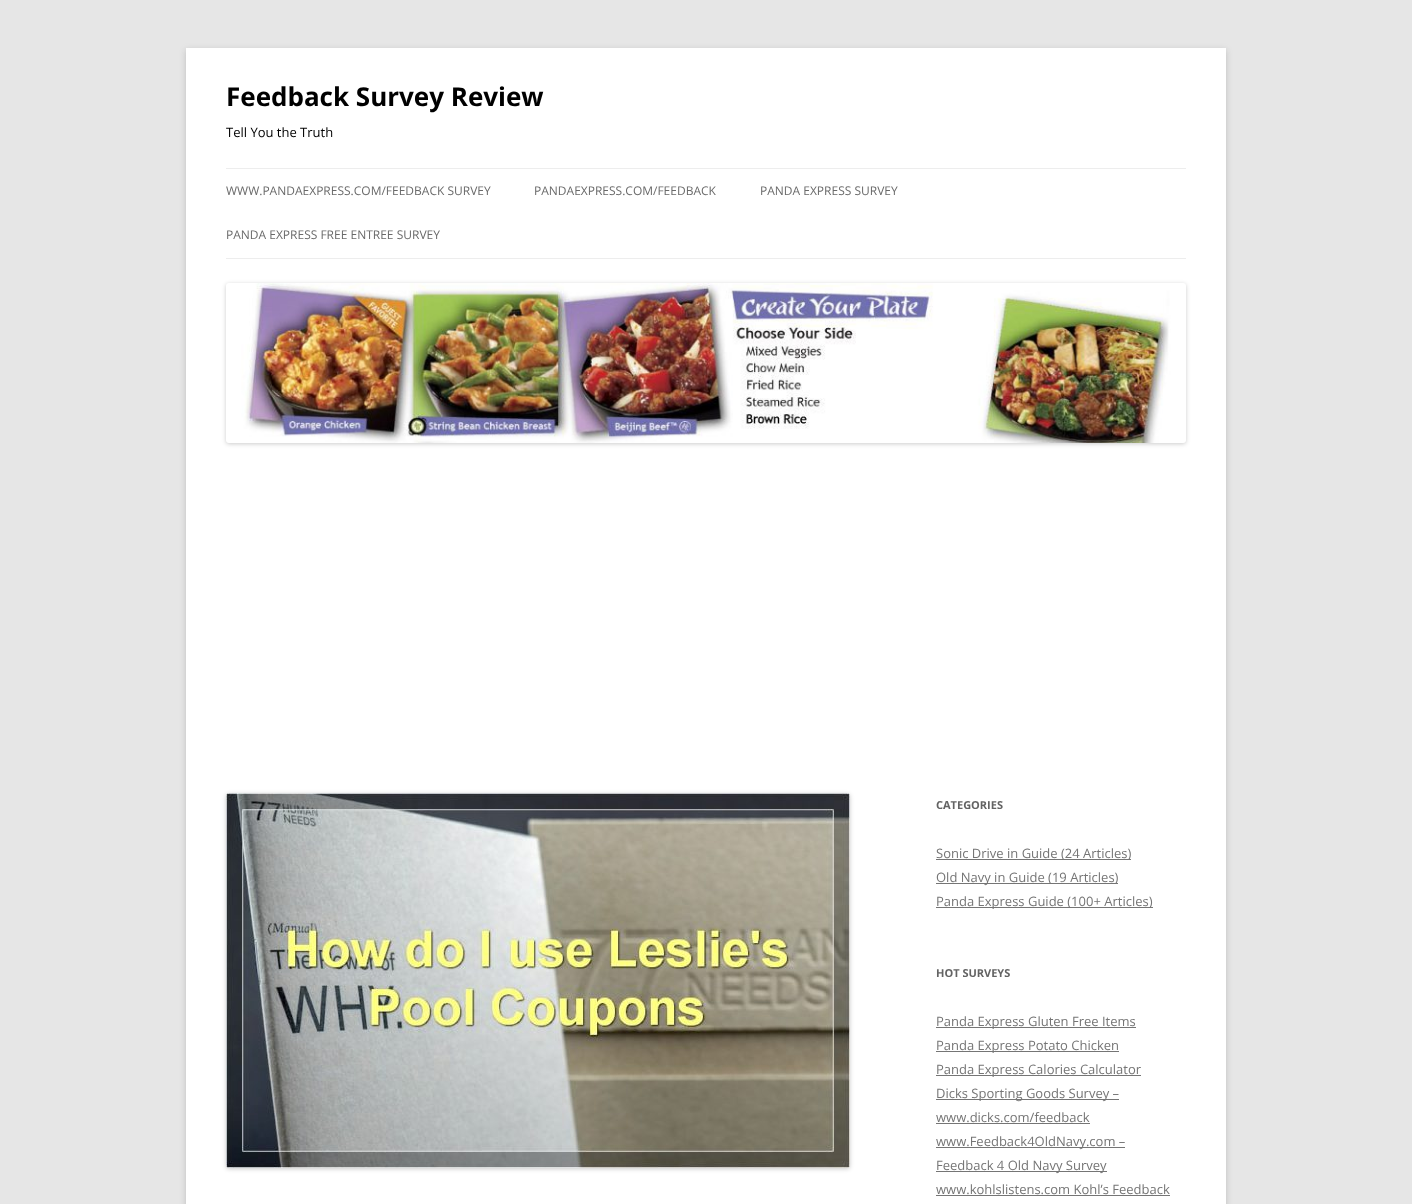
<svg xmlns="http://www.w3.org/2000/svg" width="1412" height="1204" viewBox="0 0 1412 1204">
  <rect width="100%" height="100%" fill="rgb(230,230,230)"/>
  <rect x="186" y="50" width="1040" height="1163" fill="rgba(100,100,100,0.3)" filter="blur(3px)"/>
  <rect x="186" y="48" width="1040" height="1156" fill="rgb(255,255,255)"/>
  <text x="226" y="106" font-family="Open Sans" font-size="26" font-weight="bold" fill="rgb(0,0,0)">Feedback Survey Review</text>
  <text x="226" y="137" font-family="Open Sans" font-size="13" fill="rgb(0,0,0)">Tell You the Truth</text>
  <rect x="226" y="168" width="960" height="1" fill="rgb(237,237,237)"/>
  <rect x="226" y="258" width="960" height="1" fill="rgb(237,237,237)"/>
  <g font-family="Open Sans" font-size="12" fill="rgb(106,106,106)">
    <text x="226" y="195">WWW.PANDAEXPRESS.COM/FEEDBACK SURVEY</text>
    <text x="534" y="195">PANDAEXPRESS.COM/FEEDBACK</text>
    <text x="760" y="195">PANDA EXPRESS SURVEY</text>
    <text x="226" y="239">PANDA EXPRESS FREE ENTREE SURVEY</text>
  </g>
  <rect x="226" y="284" width="960" height="160" rx="3" fill="rgba(0,0,0,0.2)" filter="blur(2px)"/>
  <image x="226" y="283" width="960" height="160" href="pic1.png"/>
  <rect x="226" y="794" width="624" height="375" rx="3" fill="rgba(0,0,0,0.2)" filter="blur(2px)"/>
  <image x="226" y="793" width="624" height="375" href="pic2.png"/>
  <text x="936" y="809" font-family="Open Sans" font-size="11" font-weight="bold" fill="rgb(99,99,99)">CATEGORIES</text>
  <rect x="936" y="859" width="195" height="1" fill="rgb(117,117,117)"/>
  <text x="936" y="858" font-family="Open Sans" font-size="13" fill="rgb(117,117,117)">Sonic Drive in Guide (24 Articles)</text>
  <rect x="936" y="883" width="182" height="1" fill="rgb(117,117,117)"/>
  <text x="936" y="882" font-family="Open Sans" font-size="13" fill="rgb(117,117,117)">Old Navy in Guide (19 Articles)</text>
  <rect x="936" y="907" width="217" height="1" fill="rgb(117,117,117)"/>
  <text x="936" y="906" font-family="Open Sans" font-size="13" fill="rgb(117,117,117)">Panda Express Guide (100+ Articles)</text>
  <text x="936" y="977" font-family="Open Sans" font-size="11" font-weight="bold" fill="rgb(99,99,99)">HOT SURVEYS</text>
  <rect x="936" y="1027" width="200" height="1" fill="rgb(117,117,117)"/>
  <text x="936" y="1026" font-family="Open Sans" font-size="13" fill="rgb(117,117,117)">Panda Express Gluten Free Items</text>
  <rect x="936" y="1051" width="183" height="1" fill="rgb(117,117,117)"/>
  <text x="936" y="1050" font-family="Open Sans" font-size="13" fill="rgb(117,117,117)">Panda Express Potato Chicken</text>
  <rect x="936" y="1075" width="205" height="1" fill="rgb(117,117,117)"/>
  <text x="936" y="1074" font-family="Open Sans" font-size="13" fill="rgb(117,117,117)">Panda Express Calories Calculator</text>
  <rect x="936" y="1099" width="183" height="1" fill="rgb(117,117,117)"/>
  <g font-family="Open Sans" font-size="13" fill="rgb(117,117,117)">
    <text>
      <tspan x="936" y="1098">Dicks Sporting Goods Survey –</tspan>
      <tspan x="936" y="1122">www.dicks.com/feedback</tspan>
    </text>
  </g>
  <rect x="936" y="1123" width="154" height="1" fill="rgb(117,117,117)"/>
  <rect x="936" y="1147" width="189" height="1" fill="rgb(117,117,117)"/>
  <text x="936" y="1146" font-family="Open Sans" font-size="13" fill="rgb(117,117,117)">www.Feedback4OldNavy.com –</text>
  <rect x="936" y="1171" width="171" height="1" fill="rgb(117,117,117)"/>
  <g font-family="Open Sans" font-size="13" fill="rgb(117,117,117)">
    <text>
      <tspan x="936" y="1170">Feedback 4 Old Navy Survey</tspan>
      <tspan x="936" y="1194">www.kohlslistens.com Kohl’s Feedback</tspan>
    </text>
  </g>
  <rect x="936" y="1195" width="234" height="1" fill="rgb(117,117,117)"/>
</svg>
